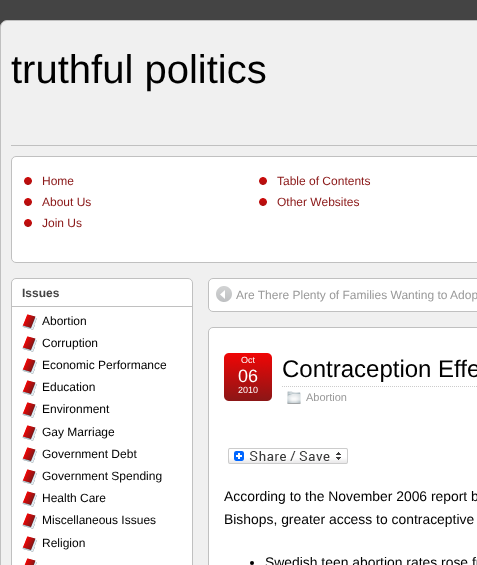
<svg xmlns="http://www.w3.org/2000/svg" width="477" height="565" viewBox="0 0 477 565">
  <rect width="100%" height="100%" fill="rgb(68,68,68)"/>
  <rect x="0.5" y="20.5" width="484" height="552" rx="6.5" fill="rgb(240,240,240)" stroke="rgb(192,192,192)"/>
  <text x="11" y="83" font-family="Liberation Sans" font-size="40" fill="rgb(0,0,0)">truthful politics</text>
  <rect x="11" y="145" width="466" height="1" fill="rgb(192,192,192)"/>
  <rect x="11.5" y="156.5" width="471" height="106" rx="4.5" fill="rgb(255,255,255)" stroke="rgb(192,192,192)"/>
  <image x="24" y="177" width="8" height="8" href="pic1.png"/>
  <text x="42" y="185" font-family="Liberation Sans" font-size="12" fill="rgb(138,23,23)">Home</text>
  <image x="24" y="198" width="8" height="8" href="pic1.png"/>
  <text x="42" y="206" font-family="Liberation Sans" font-size="12" fill="rgb(138,23,23)">About Us</text>
  <image x="24" y="219" width="8" height="8" href="pic1.png"/>
  <text x="42" y="227" font-family="Liberation Sans" font-size="12" fill="rgb(138,23,23)">Join Us</text>
  <image x="259" y="177" width="8" height="8" href="pic1.png"/>
  <text x="277" y="185" font-family="Liberation Sans" font-size="12" fill="rgb(138,23,23)">Table of Contents</text>
  <image x="259" y="198" width="8" height="8" href="pic1.png"/>
  <text x="277" y="206" font-family="Liberation Sans" font-size="12" fill="rgb(138,23,23)">Other Websites</text>
  <rect x="11.5" y="278.5" width="181" height="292" rx="4.5" fill="rgb(255,255,255)" stroke="rgb(192,192,192)"/>
  <rect x="12" y="306" width="180" height="1" fill="rgb(192,192,192)"/>
  <text x="22" y="297" font-family="Liberation Sans" font-size="12" font-weight="bold" fill="rgb(68,68,68)">Issues</text>
  <image x="22" y="314" width="15" height="16" href="pic2.png"/>
  <text x="42" y="325" font-family="Liberation Sans" font-size="12" fill="rgb(0,0,0)">Abortion</text>
  <image x="22" y="336" width="15" height="16" href="pic2.png"/>
  <text x="42" y="347" font-family="Liberation Sans" font-size="12" fill="rgb(0,0,0)">Corruption</text>
  <image x="22" y="358" width="15" height="16" href="pic2.png"/>
  <text x="42" y="369" font-family="Liberation Sans" font-size="12" fill="rgb(0,0,0)">Economic Performance</text>
  <image x="22" y="380" width="15" height="16" href="pic2.png"/>
  <text x="42" y="391" font-family="Liberation Sans" font-size="12" fill="rgb(0,0,0)">Education</text>
  <image x="22" y="402" width="15" height="16" href="pic2.png"/>
  <text x="42" y="413" font-family="Liberation Sans" font-size="12" fill="rgb(0,0,0)">Environment</text>
  <image x="22" y="425" width="15" height="16" href="pic2.png"/>
  <text x="42" y="436" font-family="Liberation Sans" font-size="12" fill="rgb(0,0,0)">Gay Marriage</text>
  <image x="22" y="447" width="15" height="16" href="pic2.png"/>
  <text x="42" y="458" font-family="Liberation Sans" font-size="12" fill="rgb(0,0,0)">Government Debt</text>
  <image x="22" y="469" width="15" height="16" href="pic2.png"/>
  <text x="42" y="480" font-family="Liberation Sans" font-size="12" fill="rgb(0,0,0)">Government Spending</text>
  <image x="22" y="491" width="15" height="16" href="pic2.png"/>
  <text x="42" y="502" font-family="Liberation Sans" font-size="12" fill="rgb(0,0,0)">Health Care</text>
  <image x="22" y="513" width="15" height="16" href="pic2.png"/>
  <text x="42" y="524" font-family="Liberation Sans" font-size="12" fill="rgb(0,0,0)">Miscellaneous Issues</text>
  <image x="22" y="536" width="15" height="16" href="pic2.png"/>
  <text x="42" y="547" font-family="Liberation Sans" font-size="12" fill="rgb(0,0,0)">Religion</text>
  <image x="24" y="558" width="13" height="7" href="pic3.png"/>
  <rect x="208.5" y="278.5" width="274" height="33" rx="4.5" fill="rgb(255,255,255)" stroke="rgb(192,192,192)"/>
  <image x="216" y="286" width="16" height="16" href="pic4.png"/>
  <text x="236" y="299" font-family="Liberation Sans" font-size="12" fill="rgb(153,153,153)">Are There Plenty of Families Wanting to Adop</text>
  <rect x="208.5" y="327.5" width="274" height="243" rx="4.5" fill="rgb(255,255,255)" stroke="rgb(192,192,192)"/>
  <image x="224" y="353" width="48" height="48" href="pic5.png"/>
  <text x="241" y="363" font-family="Liberation Sans" font-size="9" fill="rgb(255,255,255)">Oct</text>
  <text x="238" y="382" font-family="Liberation Sans" font-size="18" fill="rgb(255,255,255)">06</text>
  <text x="238" y="393" font-family="Liberation Sans" font-size="9" fill="rgb(255,255,255)">2010</text>
  <path d="M282 386.5H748" fill="none" stroke="rgb(204,204,204)" stroke-dasharray="1 1"/>
  <text x="282" y="377" font-family="Liberation Sans" font-size="24" fill="rgb(0,0,0)">Contraception Effe</text>
  <image x="287" y="391" width="14" height="13" href="pic6.png"/>
  <text x="306" y="401" font-family="Liberation Sans" font-size="11" fill="rgb(153,153,153)">Abortion</text>
  <image x="228" y="448" width="120" height="16" href="pic7.png"/>
  <g font-family="Liberation Sans" font-size="13.9" fill="rgb(0,0,0)">
    <text>
      <tspan x="224" y="501">According to the November 2006 report b</tspan>
      <tspan x="224" y="524">Bishops, greater access to contraceptive</tspan>
    </text>
  </g>
  <circle cx="252" cy="563" r="2" fill="rgb(0,0,0)"/>
  <text x="265" y="567" font-family="Liberation Sans" font-size="13.9" fill="rgb(0,0,0)">Swedish teen abortion rates rose fr</text>
</svg>
